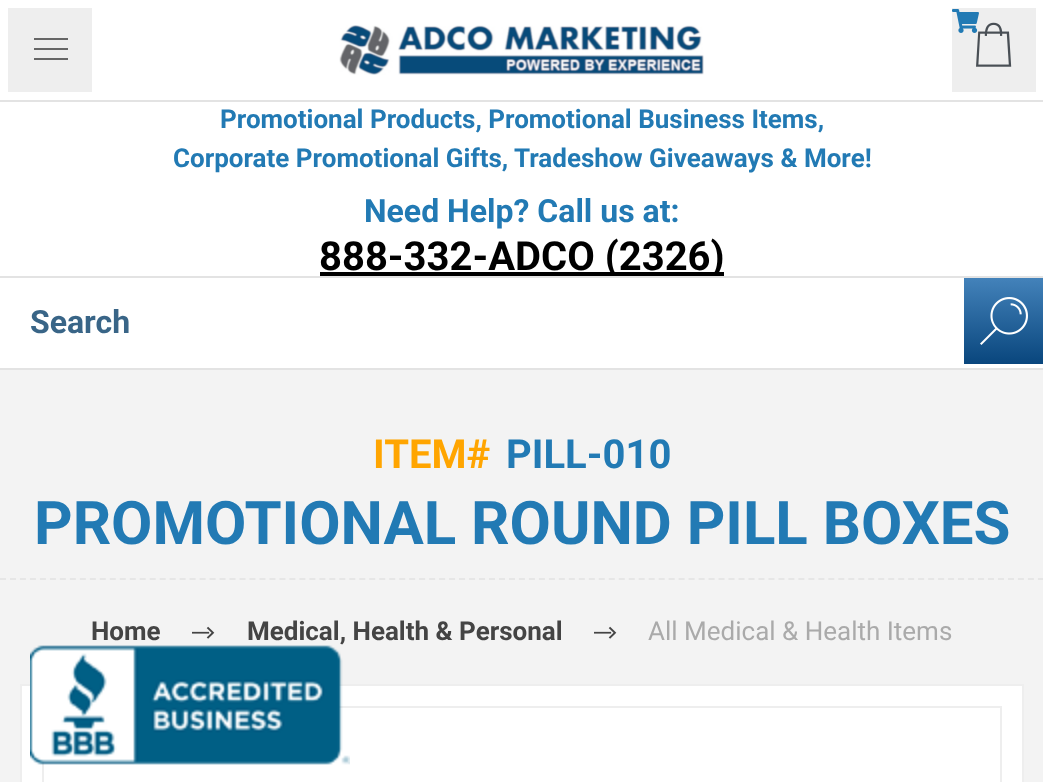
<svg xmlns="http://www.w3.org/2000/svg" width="1043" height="782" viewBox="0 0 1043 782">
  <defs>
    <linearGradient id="g1" gradientUnits="userSpaceOnUse" x1="1004" y1="278" x2="1004" y2="364"><stop offset="0" stop-color="rgb(67,130,186)"/><stop offset="1" stop-color="rgb(9,70,125)"/></linearGradient>
  </defs>
  <rect width="100%" height="100%" fill="rgb(243,243,243)"/>
  <rect x="4" y="4" width="92" height="92" fill="rgb(238,238,238)" stroke="rgb(255,255,255)" stroke-width="8"/>
  <rect x="34" y="38" width="34" height="2" fill="rgb(102,102,102)"/>
  <rect x="34" y="48" width="34" height="2" fill="rgb(102,102,102)"/>
  <rect x="34" y="58" width="34" height="2" fill="rgb(102,102,102)"/>
  <rect x="948" y="4" width="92" height="92" fill="rgb(238,238,238)" stroke="rgb(255,255,255)" stroke-width="8"/>
  <image x="952" y="9" width="27" height="24" href="pic1.png"/>
  <image x="976" y="22" width="36" height="45" href="pic2.png"/>
  <rect x="0" y="100" width="1043" height="2" fill="rgb(227,227,227)"/>
  <rect x="100" y="0" width="844" height="100" fill="rgb(255,255,255)"/>
  <image x="339" y="25" width="365" height="50" href="pic3.png"/>
  <rect x="0" y="102" width="1043" height="174" fill="rgb(255,255,255)"/>
  <g font-family="Roboto" font-size="26" font-weight="bold" fill="rgb(34,122,180)">
    <text x="220" y="128">Promotional Products, Promotional Business Items,</text>
    <text x="173" y="167">Corporate Promotional Gifts, Tradeshow Giveaways &amp; More!</text>
  </g>
  <text x="364" y="222" font-family="Roboto" font-size="32" font-weight="bold" fill="rgb(34,122,180)">Need Help? Call us at:</text>
  <rect x="320" y="272" width="404" height="4" fill="rgb(0,0,0)"/>
  <text x="319" y="270" font-family="Roboto" font-size="40" font-weight="bold" fill="rgb(0,0,0)">888-332-ADCO (2326)</text>
  <rect x="0" y="278" width="1043" height="90" fill="rgb(255,255,255)"/>
  <rect x="0" y="276" width="1043" height="2" fill="rgb(227,227,227)"/>
  <rect x="0" y="368" width="1043" height="2" fill="rgb(227,227,227)"/>
  <text x="30" y="333" font-family="Roboto" font-size="32" font-weight="bold" fill="rgb(57,101,135)">Search</text>
  <rect x="964" y="278" width="79" height="86" fill="url(#g1)"/>
  <image x="980" y="297" width="48" height="48" href="pic4.png"/>
  <path d="M0 579H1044" fill="none" stroke="rgb(230,230,230)" stroke-width="2" stroke-dasharray="6 3.98"/>
  <text x="373" y="468" font-family="Roboto" font-size="40" font-weight="bold" fill="rgb(255,165,0)">ITEM#</text>
  <text x="506" y="468" font-family="Roboto" font-size="40" font-weight="bold" fill="rgb(34,122,180)">PILL-010</text>
  <text x="34" y="544" font-family="Roboto" font-size="60" font-weight="bold" fill="rgb(34,122,180)">PROMOTIONAL ROUND PILL BOXES</text>
  <text x="91" y="640" font-family="Roboto" font-size="26" font-weight="bold" fill="rgb(68,68,68)">Home</text>
  <image x="192" y="626" width="23" height="13" href="pic5.png"/>
  <text x="247" y="640" font-family="Roboto" font-size="26" font-weight="bold" fill="rgb(68,68,68)">Medical, Health &amp; Personal</text>
  <image x="594" y="626" width="23" height="13" href="pic5.png"/>
  <text x="648" y="640" font-family="Roboto" font-size="26" fill="rgb(170,170,170)">All Medical &amp; Health Items</text>
  <rect x="21" y="685" width="1002" height="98" fill="rgb(255,255,255)" stroke="rgb(238,238,238)" stroke-width="2"/>
  <rect x="43" y="707" width="958" height="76" fill="none" stroke="rgb(238,238,238)" stroke-width="2"/>
  <image x="30" y="645" width="320" height="120" href="pic6.png"/>
</svg>
